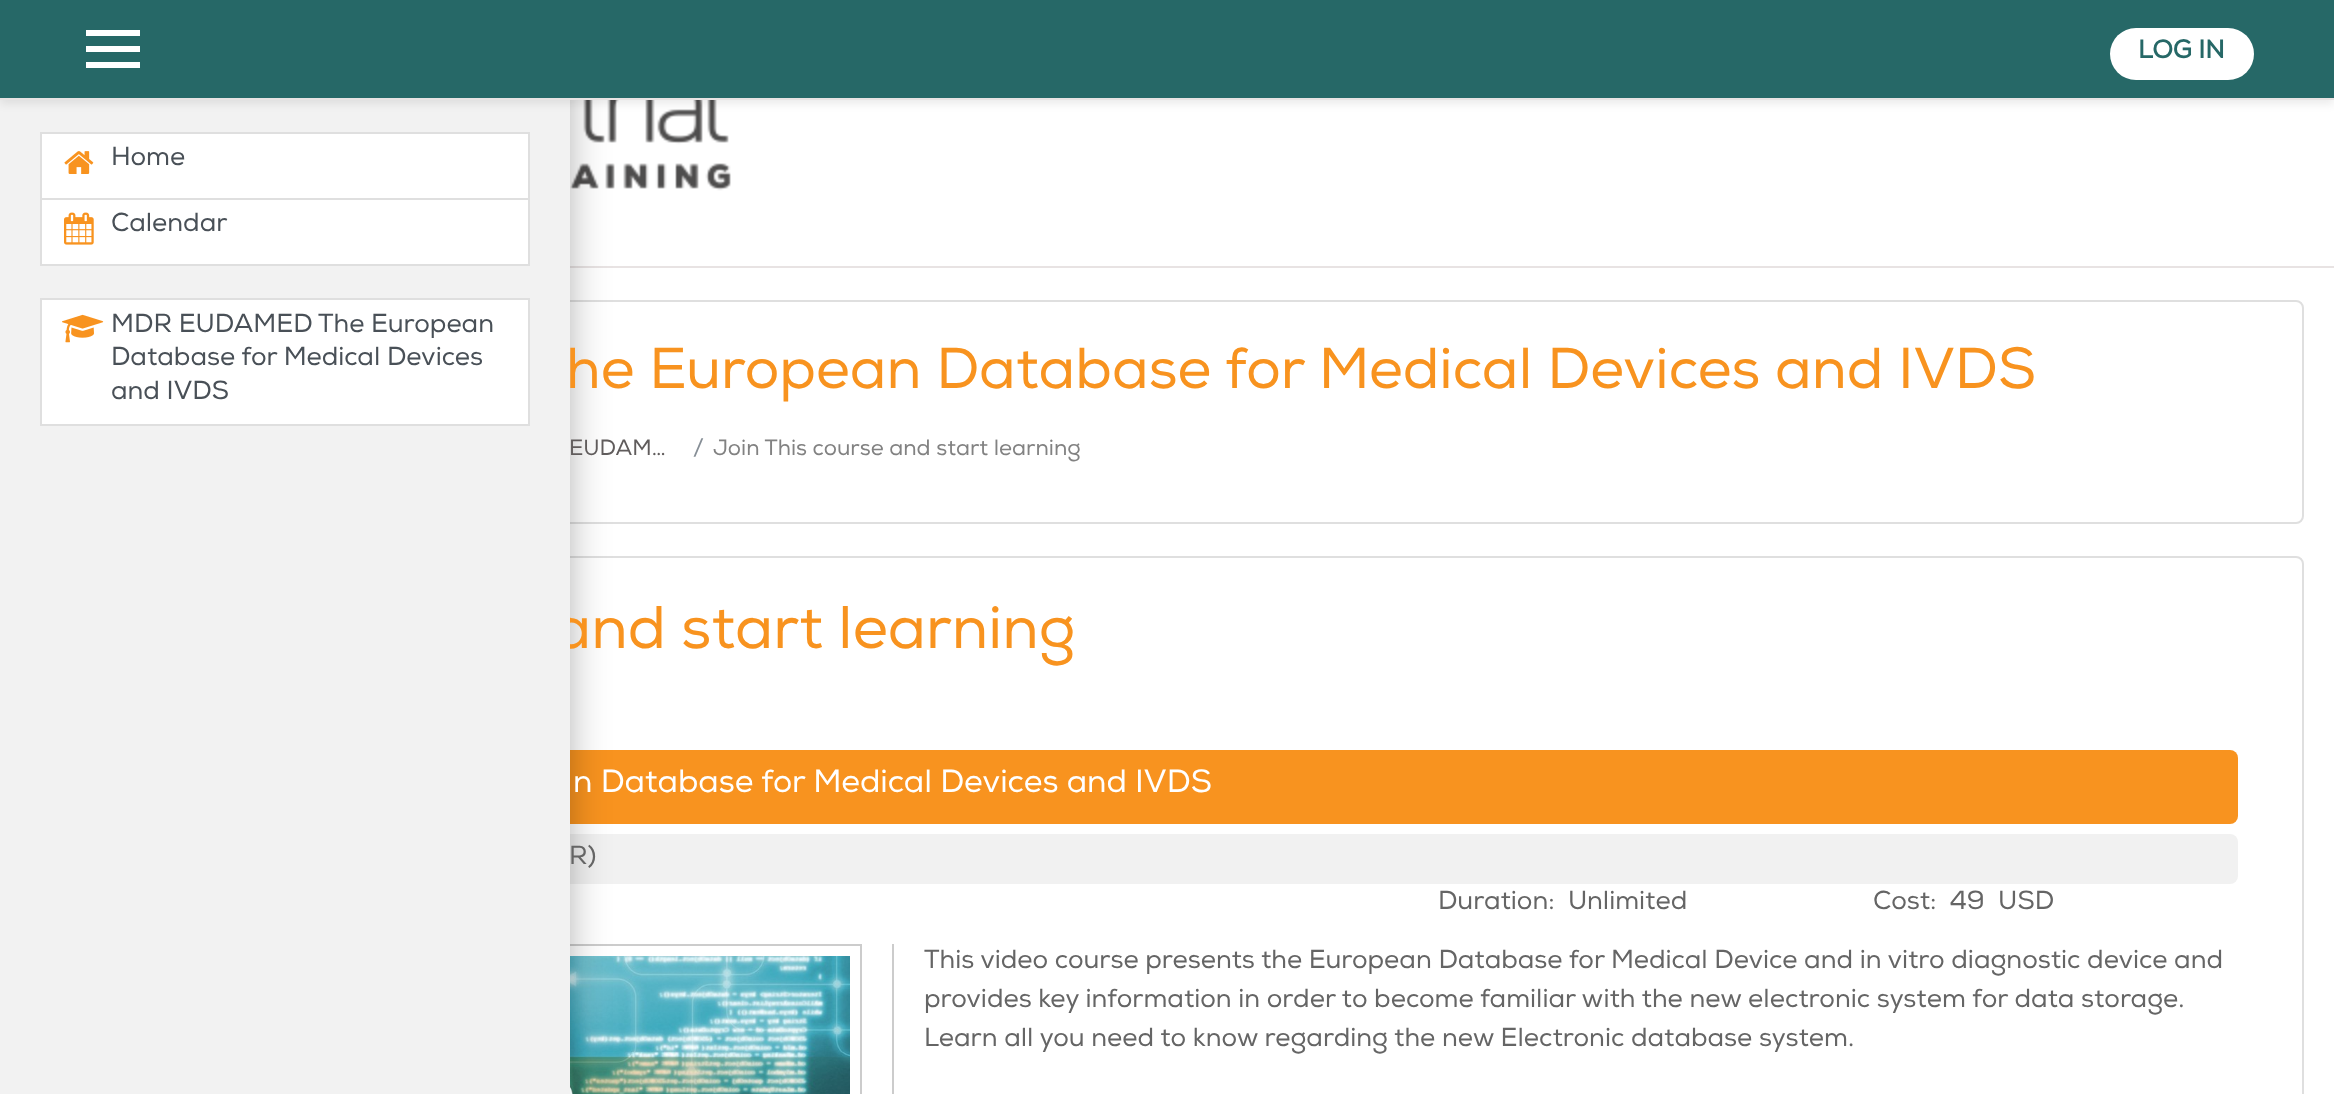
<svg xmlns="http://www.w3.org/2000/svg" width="2334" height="1094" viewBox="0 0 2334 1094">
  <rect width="100%" height="100%" fill="rgb(255,255,255)"/>
  <rect x="570" y="266" width="1764" height="2" fill="rgb(232,227,227)"/>
  <image x="570" y="100" width="161" height="91" href="pic4.png"/>
  <rect x="31" y="301" width="2272" height="222" rx="7" fill="none" stroke="rgb(223,223,223)" stroke-width="2"/>
  <rect x="31" y="557" width="2272" height="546" rx="7" fill="none" stroke="rgb(223,223,223)" stroke-width="2"/>
  <rect x="96" y="750" width="2142" height="74" rx="8" fill="rgb(248,147,31)"/>
  <rect x="96" y="834" width="2142" height="50" rx="8" fill="rgb(241,241,241)"/>
  <rect x="97" y="945" width="764" height="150" fill="none" stroke="rgb(204,204,204)" stroke-width="2"/>
  <image x="570" y="956" width="280" height="138" href="pic5.png"/>
  <rect x="36" y="24" width="522" height="1046" fill="rgba(0,0,0,0.5)" filter="blur(24px)"/>
  <text x="553" y="648" font-family="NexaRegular" font-size="60" fill="rgb(248,147,31)">and start learning</text>
  <rect x="0" y="100" width="570" height="994" fill="rgb(242,242,242)"/>
  <rect x="0" y="4" width="2334" height="100" fill="rgba(0,0,0,0.08)" filter="blur(4px)"/>
  <rect x="0" y="0" width="2334" height="98" fill="rgb(38,104,103)"/>
  <rect x="0" y="98" width="2334" height="2" fill="rgb(232,227,227)"/>
  <rect x="86" y="30" width="54" height="6" fill="rgb(255,255,255)"/>
  <rect x="86" y="46" width="54" height="6" fill="rgb(255,255,255)"/>
  <rect x="86" y="62" width="54" height="6" fill="rgb(255,255,255)"/>
  <rect x="2110" y="28" width="144" height="52" rx="26" fill="rgb(255,255,255)"/>
  <text x="2138" y="58" font-family="NexaRegular" font-size="25.5" font-weight="bold" fill="rgb(38,104,103)">LOG IN</text>
  <rect x="41" y="133" width="488" height="66" fill="rgb(255,255,255)" stroke="rgb(223,223,223)" stroke-width="2"/>
  <image x="64" y="151" width="30" height="23" href="pic1.png"/>
  <text x="111" y="165" font-family="NexaRegular" font-size="26" fill="rgb(73,80,87)">Home</text>
  <rect x="41" y="199" width="488" height="66" fill="rgb(255,255,255)" stroke="rgb(223,223,223)" stroke-width="2"/>
  <image x="64" y="212" width="30" height="33" href="pic2.png"/>
  <text x="111" y="231" font-family="NexaRegular" font-size="26" fill="rgb(73,80,87)">Calendar</text>
  <rect x="41" y="299" width="488" height="126" fill="rgb(255,255,255)" stroke="rgb(223,223,223)" stroke-width="2"/>
  <image x="62" y="314" width="42" height="29" href="pic3.png"/>
  <g font-family="NexaRegular" font-size="26" fill="rgb(73,80,87)">
    <text x="111" y="332">MDR EUDAMED</text>
    <text x="318" y="332">The European</text>
    <text>
      <tspan x="111" y="365">Database for Medical Devices</tspan>
      <tspan x="111" y="399">and IVDS</tspan>
    </text>
  </g>
  <text x="566" y="388" font-family="NexaRegular" font-size="57.6" fill="rgb(248,147,31)">he European Database for Medical Devices and IVDS</text>
  <text x="569" y="455" font-family="NexaRegular" font-size="22" fill="rgb(96,92,92)">EUDAM…</text>
  <text x="693" y="455" font-family="NexaRegular" font-size="22" fill="rgb(134,142,150)">/</text>
  <text x="713" y="455" font-family="NexaRegular" font-size="22" fill="rgb(130,130,130)">Join This course and start learning</text>
  <text x="573" y="792" font-family="NexaRegular" font-size="32" fill="rgb(255,255,255)">n Database for Medical Devices and IVDS</text>
  <g font-family="NexaRegular" font-size="26" fill="rgb(101,101,101)">
    <text x="569" y="864">R)</text>
    <text x="1438" y="909" xml:space="preserve">Duration:  Unlimited</text>
    <text x="1873" y="909" xml:space="preserve">Cost:  49  USD</text>
  </g>
  <rect x="892" y="944" width="2" height="150" fill="rgb(204,204,204)"/>
  <g font-family="NexaRegular" font-size="26" fill="rgb(101,101,101)">
    <text>
      <tspan x="924" y="968">This video course presents the European Database for Medical Device and in vitro diagnostic device and</tspan>
      <tspan x="924" y="1007">provides key information in order to become familiar with the new electronic system for data storage.</tspan>
      <tspan x="924" y="1046">Learn all you need to know regarding the new Electronic database system.</tspan>
    </text>
  </g>
</svg>
